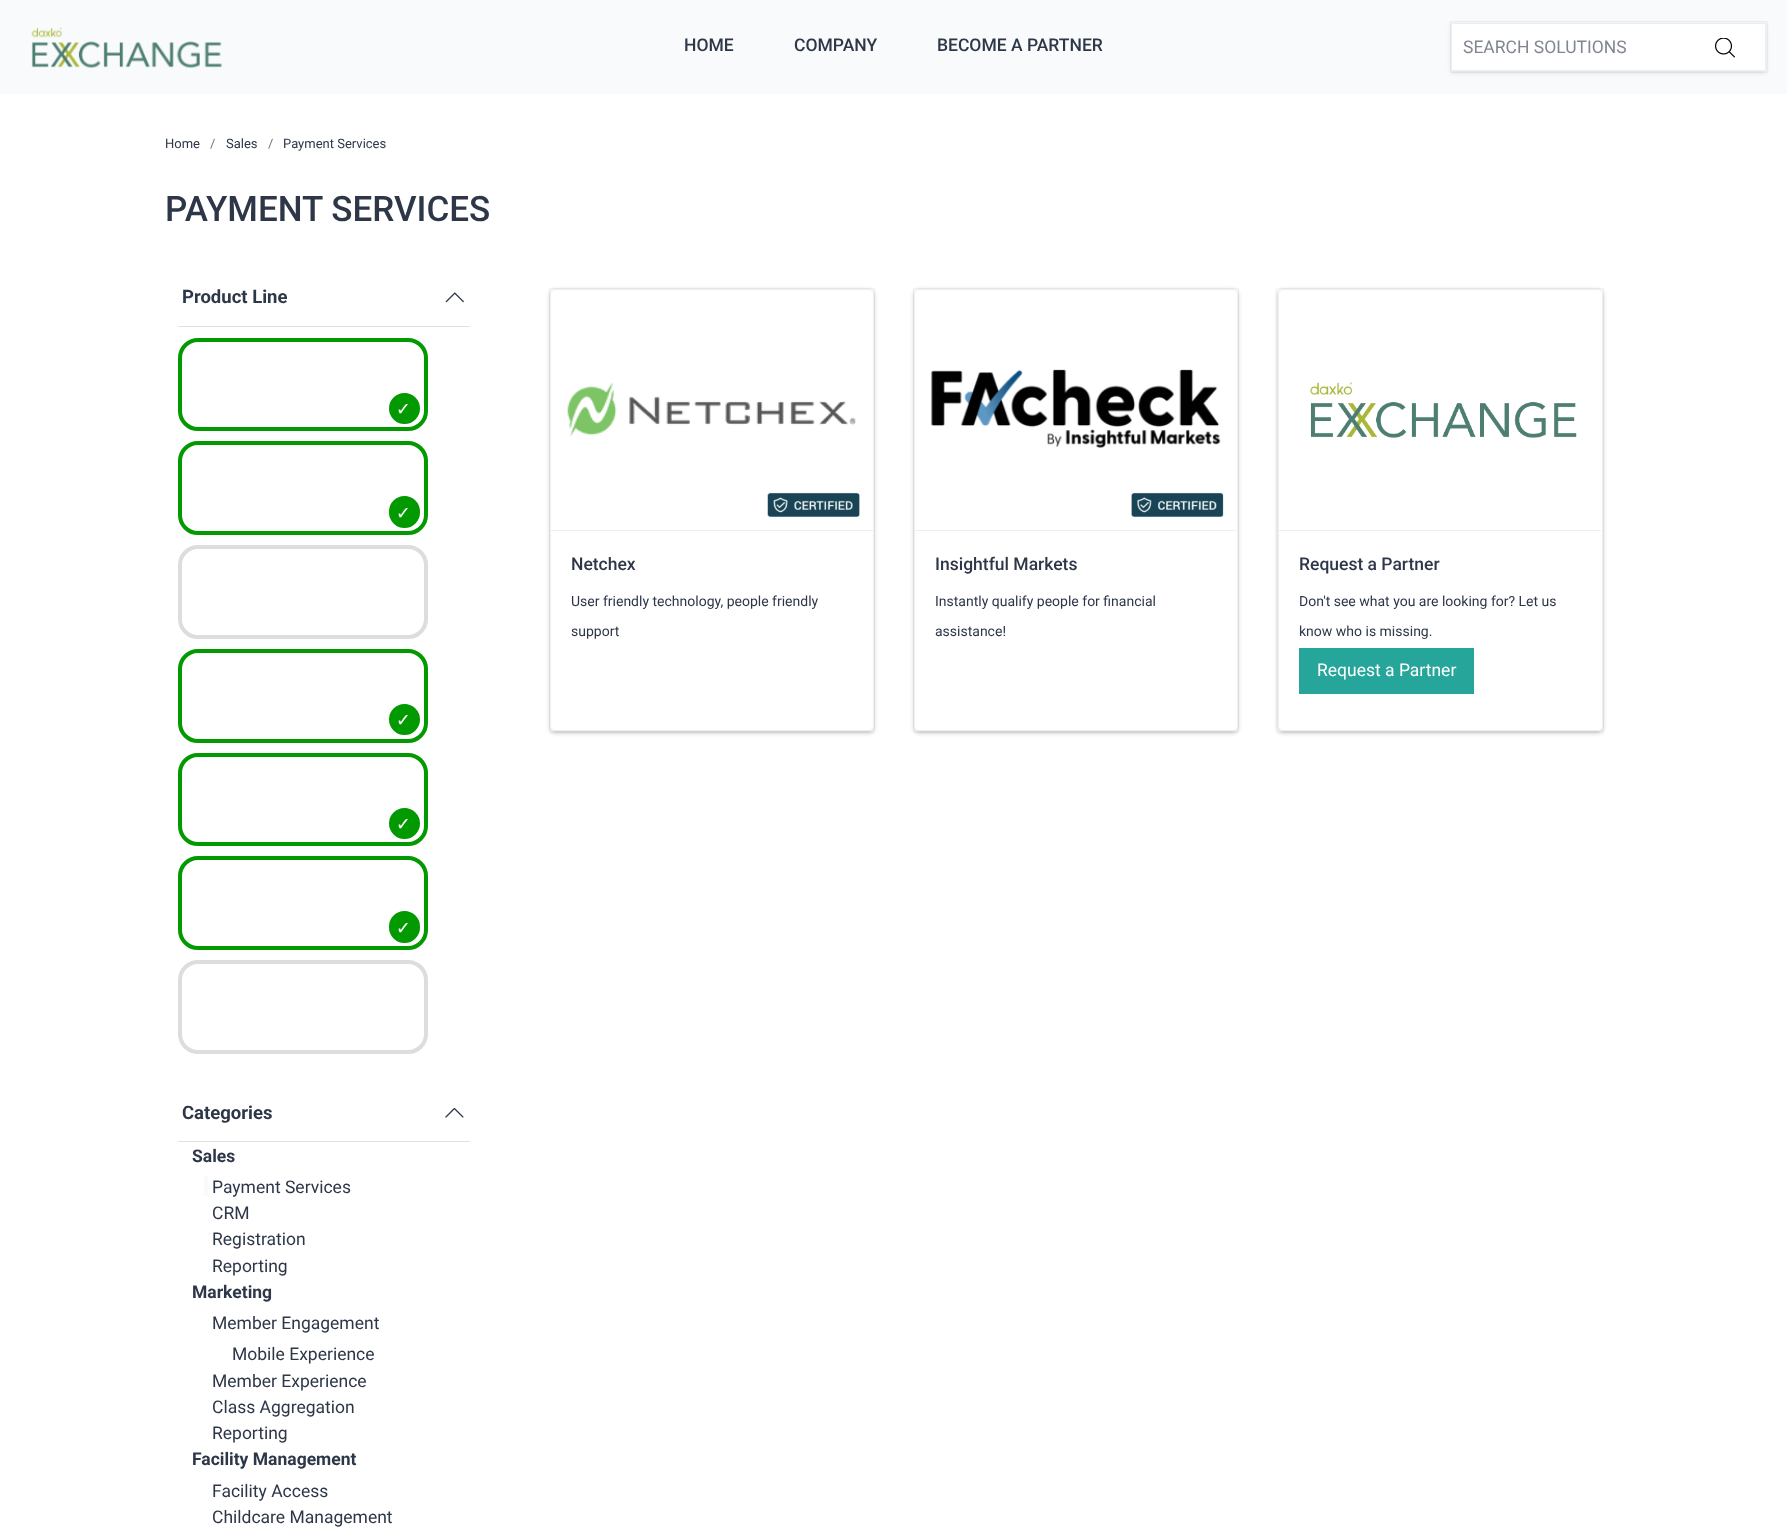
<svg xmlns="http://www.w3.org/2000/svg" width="1787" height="1529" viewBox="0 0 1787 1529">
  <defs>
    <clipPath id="clip1"><path d="M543 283H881V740H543ZM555 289H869C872 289 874 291 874 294V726C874 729 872 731 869 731H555C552 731 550 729 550 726V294C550 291 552 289 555 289Z" clip-rule="evenodd"/></clipPath>
    <clipPath id="clip2"><path d="M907 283H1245V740H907ZM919 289H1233C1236 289 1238 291 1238 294V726C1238 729 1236 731 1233 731H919C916 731 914 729 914 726V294C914 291 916 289 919 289Z" clip-rule="evenodd"/></clipPath>
    <clipPath id="clip3"><path d="M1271 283H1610V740H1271ZM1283 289H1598C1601 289 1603 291 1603 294V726C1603 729 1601 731 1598 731H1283C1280 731 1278 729 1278 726V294C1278 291 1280 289 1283 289Z" clip-rule="evenodd"/></clipPath>
  </defs>
  <rect width="100%" height="100%" fill="rgb(255,255,255)"/>
  <rect x="0" y="0" width="1787" height="94" fill="rgb(249,250,251)"/>
  <image x="31" y="27" width="192" height="41" href="pic1.png"/>
  <g font-family="Roboto" font-size="17.5" font-weight="500" fill="rgb(45,55,72)">
    <text x="684" y="51">HOME</text>
    <text x="794" y="51">COMPANY</text>
    <text x="937" y="51">BECOME A PARTNER</text>
  </g>
  <rect x="1451" y="24" width="315" height="49" fill="rgba(63,63,68,0.15)" filter="blur(2px)"/>
  <rect x="1450.5" y="21.5" width="317" height="51" fill="none" stroke="rgba(63,63,68,0.05)"/>
  <rect x="1451.5" y="23.5" width="314" height="47" fill="rgb(255,255,255)" stroke="rgb(236,239,241)"/>
  <text x="1463" y="53" font-family="Roboto" font-size="17.5" fill="rgb(129,135,145)">SEARCH SOLUTIONS</text>
  <image x="1715" y="38" width="20" height="20" href="pic2.png"/>
  <text x="165" y="148" font-family="Roboto" font-size="13" fill="rgb(45,55,72)">Home</text>
  <text x="210" y="148" font-family="Roboto" font-size="13" fill="rgb(108,117,125)">/</text>
  <text x="226" y="148" font-family="Roboto" font-size="13" fill="rgb(45,55,72)">Sales</text>
  <text x="268" y="148" font-family="Roboto" font-size="13" fill="rgb(108,117,125)">/</text>
  <text x="283" y="148" font-family="Roboto" font-size="13" fill="rgb(45,55,72)">Payment Services</text>
  <text x="165" y="221" font-family="Roboto" font-size="35" font-weight="500" fill="rgb(45,55,72)">PAYMENT SERVICES</text>
  <rect x="178" y="326" width="292" height="1" fill="rgb(226,226,226)"/>
  <text x="182" y="303" font-family="Roboto" font-size="18.5" font-weight="bold" fill="rgb(45,55,72)">Product Line</text>
  <image x="445" y="292" width="19" height="11" href="pic3.png"/>
  <rect x="180" y="340" width="246" height="89" rx="18" fill="none" stroke="rgb(3,153,0)" stroke-width="4"/>
  <circle cx="404.5" cy="408.5" r="13.5" fill="rgb(3,153,0)" stroke="rgb(3,153,0)" stroke-width="4"/>
  <text x="396" y="415" font-family="DejaVu Sans" font-size="17.5" fill="rgb(255,255,255)">✓</text>
  <rect x="180" y="443" width="246" height="90" rx="18" fill="none" stroke="rgb(3,153,0)" stroke-width="4"/>
  <rect x="391" y="498" width="27" height="28" rx="13.5" fill="rgb(3,153,0)" stroke="rgb(3,153,0)" stroke-width="4"/>
  <text x="396" y="519" font-family="DejaVu Sans" font-size="17.5" fill="rgb(255,255,255)">✓</text>
  <rect x="180" y="547" width="246" height="90" rx="18" fill="none" stroke="rgb(221,221,221)" stroke-width="4"/>
  <rect x="180" y="651" width="246" height="90" rx="18" fill="none" stroke="rgb(3,153,0)" stroke-width="4"/>
  <circle cx="404.5" cy="719.5" r="13.5" fill="rgb(3,153,0)" stroke="rgb(3,153,0)" stroke-width="4"/>
  <text x="396" y="726" font-family="DejaVu Sans" font-size="17.5" fill="rgb(255,255,255)">✓</text>
  <rect x="180" y="755" width="246" height="89" rx="18" fill="none" stroke="rgb(3,153,0)" stroke-width="4"/>
  <circle cx="404.5" cy="823.5" r="13.5" fill="rgb(3,153,0)" stroke="rgb(3,153,0)" stroke-width="4"/>
  <text x="396" y="830" font-family="DejaVu Sans" font-size="17.5" fill="rgb(255,255,255)">✓</text>
  <rect x="180" y="858" width="246" height="90" rx="18" fill="none" stroke="rgb(3,153,0)" stroke-width="4"/>
  <rect x="391" y="913" width="27" height="28" rx="13.5" fill="rgb(3,153,0)" stroke="rgb(3,153,0)" stroke-width="4"/>
  <text x="396" y="934" font-family="DejaVu Sans" font-size="17.5" fill="rgb(255,255,255)">✓</text>
  <rect x="180" y="962" width="246" height="90" rx="18" fill="none" stroke="rgb(221,221,221)" stroke-width="4"/>
  <rect x="178" y="1141" width="292" height="1" fill="rgb(226,226,226)"/>
  <text x="182" y="1119" font-family="Roboto" font-size="18.5" font-weight="bold" fill="rgb(45,55,72)">Categories</text>
  <image x="445" y="1107" width="19" height="11" href="pic4.png"/>
  <text x="192" y="1162" font-family="Roboto" font-size="17.5" font-weight="bold" fill="rgb(45,55,72)">Sales</text>
  <text x="212" y="1193" font-family="Roboto" font-size="17.5" fill="rgb(45,55,72)">Payment Services</text>
  <path d="M204 1176V1196H208V1176H348Z" fill="rgb(249,250,251)"/>
  <g font-family="Roboto" font-size="17.5" fill="rgb(45,55,72)">
    <text>
      <tspan x="212" y="1219">CRM</tspan>
      <tspan x="212" y="1245">Registration</tspan>
      <tspan x="212" y="1272">Reporting</tspan>
    </text>
  </g>
  <text x="192" y="1298" font-family="Roboto" font-size="17.5" font-weight="bold" fill="rgb(45,55,72)">Marketing</text>
  <g font-family="Roboto" font-size="17.5" fill="rgb(45,55,72)">
    <text x="212" y="1329">Member Engagement</text>
    <text x="232" y="1360">Mobile Experience</text>
    <text>
      <tspan x="212" y="1387">Member Experience</tspan>
      <tspan x="212" y="1413">Class Aggregation</tspan>
      <tspan x="212" y="1439">Reporting</tspan>
    </text>
  </g>
  <text x="192" y="1465" font-family="Roboto" font-size="17.5" font-weight="bold" fill="rgb(45,55,72)">Facility Management</text>
  <g font-family="Roboto" font-size="17.5" fill="rgb(45,55,72)">
    <text>
      <tspan x="212" y="1497">Facility Access</tspan>
      <tspan x="212" y="1523">Childcare Management</tspan>
    </text>
  </g>
  <g clip-path="url(#clip1)">
    <rect x="550" y="290" width="324" height="443" rx="5" fill="rgba(63,63,68,0.3)" filter="blur(2px)"/>
  </g>
  <rect x="549.5" y="288.5" width="325" height="444" fill="none" stroke="rgba(63,63,68,0.05)"/>
  <rect x="550.5" y="289.5" width="323" height="441" rx="4.5" fill="none" stroke="rgb(236,239,241)"/>
  <image x="567" y="382" width="289" height="55" href="pic5.png"/>
  <image x="767" y="492" width="93" height="25" href="pic6.png"/>
  <rect x="551" y="530" width="322" height="1" fill="rgb(236,239,241)"/>
  <text x="571" y="570" font-family="Roboto" font-size="17.5" font-weight="500" fill="rgb(45,55,72)">Netchex</text>
  <g font-family="Roboto" font-size="14" fill="rgb(45,55,72)">
    <text x="571" y="606">User friendly technology, people friendly</text>
    <text x="571" y="636">support</text>
  </g>
  <g clip-path="url(#clip2)">
    <rect x="914" y="290" width="324" height="443" rx="5" fill="rgba(63,63,68,0.3)" filter="blur(2px)"/>
  </g>
  <rect x="913.5" y="288.5" width="325" height="444" fill="none" stroke="rgba(63,63,68,0.05)"/>
  <rect x="914.5" y="289.5" width="323" height="441" rx="4.5" fill="none" stroke="rgb(236,239,241)"/>
  <image x="931" y="369" width="290" height="79" href="pic7.png"/>
  <image x="1131" y="492" width="93" height="25" href="pic8.png"/>
  <rect x="915" y="530" width="321" height="1" fill="rgb(236,239,241)"/>
  <text x="935" y="570" font-family="Roboto" font-size="17.5" font-weight="500" fill="rgb(45,55,72)">Insightful Markets</text>
  <g font-family="Roboto" font-size="14" fill="rgb(45,55,72)">
    <text x="935" y="606">Instantly qualify people for financial</text>
    <text x="935" y="636">assistance!</text>
  </g>
  <g clip-path="url(#clip3)">
    <rect x="1278" y="290" width="325" height="443" rx="5" fill="rgba(63,63,68,0.3)" filter="blur(2px)"/>
  </g>
  <rect x="1276.5" y="288.5" width="327" height="444" fill="none" stroke="rgba(63,63,68,0.05)"/>
  <rect x="1278.5" y="289.5" width="324" height="441" rx="4.5" fill="none" stroke="rgb(236,239,241)"/>
  <image x="1310" y="382" width="267" height="56" href="pic9.png"/>
  <rect x="1279" y="530" width="322" height="1" fill="rgb(236,239,241)"/>
  <text x="1299" y="570" font-family="Roboto" font-size="17.5" font-weight="500" fill="rgb(45,55,72)">Request a Partner</text>
  <g font-family="Roboto" font-size="14" fill="rgb(45,55,72)">
    <text x="1299" y="606">Don't see what you are looking for? Let us</text>
    <text x="1299" y="636">know who is missing.</text>
  </g>
  <rect x="1299" y="648" width="175" height="46" fill="rgb(38,166,154)"/>
  <text x="1317" y="676" font-family="Roboto" font-size="17.5" fill="rgb(255,255,255)">Request a Partner</text>
</svg>
